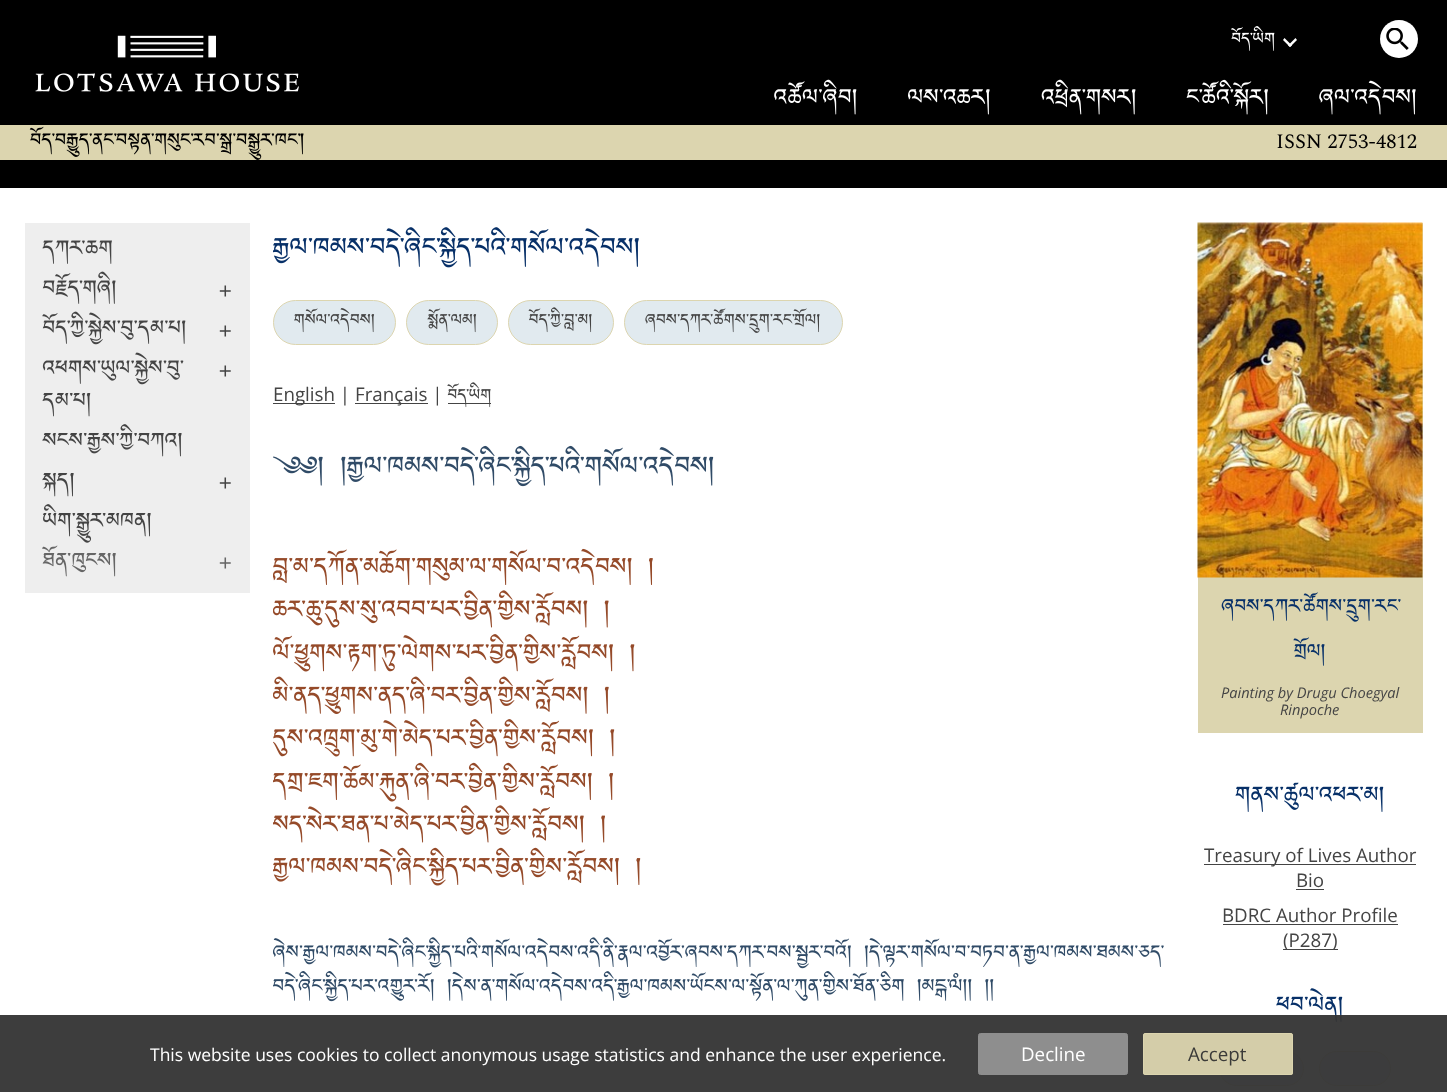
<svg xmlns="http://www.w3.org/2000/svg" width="1447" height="1092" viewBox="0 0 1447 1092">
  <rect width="100%" height="100%" fill="rgb(255,255,255)"/>
  <rect x="0" y="0" width="1447" height="125" fill="rgb(0,0,0)"/>
  <image x="35" y="35" width="264" height="57" href="pic1.png"/>
  <image x="1231" y="26" width="44" height="25" href="pic2.png"/>
  <path d="M1295.5 38L1297 40L1290 47L1288 45.5Z" fill="rgb(255,255,255)"/>
  <path d="M1284.5 38L1292 45.5L1290 47L1283 40Z" fill="rgb(255,255,255)"/>
  <circle cx="1399" cy="39" r="19" fill="rgb(255,255,255)"/>
  <image x="1386" y="28" width="23" height="22" href="pic3.png"/>
  <image x="774" y="79" width="83" height="36" href="pic4.png"/>
  <image x="908" y="89" width="82" height="26" href="pic5.png"/>
  <image x="1041" y="79" width="95" height="36" href="pic6.png"/>
  <image x="1186" y="79" width="82" height="36" href="pic7.png"/>
  <image x="1319" y="80" width="97" height="35" href="pic8.png"/>
  <rect x="0" y="125" width="1447" height="35" fill="rgb(220,213,175)"/>
  <image x="29" y="126" width="275" height="34" href="pic9.png"/>
  <text x="1276" y="148" font-family="Spectral" font-size="20.5" fill="rgb(0,0,0)">ISSN 2753-4812</text>
  <rect x="0" y="160" width="1447" height="28" fill="rgb(0,0,0)"/>
  <rect x="25" y="223" width="225" height="370" fill="rgb(238,238,238)"/>
  <image x="42" y="240" width="70" height="24" href="pic10.png"/>
  <image x="42" y="271" width="74" height="33" href="pic11.png"/>
  <text x="218" y="298" font-family="Spectral" font-size="26" font-weight="bold" fill="rgb(68,68,68)">+</text>
  <image x="42" y="311" width="144" height="34" href="pic12.png"/>
  <text x="218" y="338" font-family="Spectral" font-size="26" font-weight="bold" fill="rgb(68,68,68)">+</text>
  <image x="42" y="352" width="142" height="33" href="pic13.png"/>
  <image x="42" y="393" width="49" height="24" href="pic14.png"/>
  <text x="218" y="378" font-family="Spectral" font-size="26" font-weight="bold" fill="rgb(68,68,68)">+</text>
  <image x="42" y="424" width="140" height="33" href="pic15.png"/>
  <image x="42" y="473" width="32" height="24" href="pic16.png"/>
  <text x="218" y="490" font-family="Spectral" font-size="26" font-weight="bold" fill="rgb(68,68,68)">+</text>
  <image x="43" y="504" width="108" height="39" href="pic17.png"/>
  <image x="42" y="545" width="74" height="32" href="pic18.png"/>
  <text x="218" y="570" font-family="Spectral" font-size="26" font-weight="bold" fill="rgb(102,102,102)">+</text>
  <image x="273" y="227" width="366" height="41" href="pic19.png"/>
  <rect x="273.5" y="300.5" width="122" height="44" rx="22" fill="rgb(225,234,239)" stroke="rgb(220,213,175)"/>
  <image x="294" y="308" width="81" height="25" href="pic20.png"/>
  <rect x="406.5" y="300.5" width="91" height="44" rx="22" fill="rgb(225,234,239)" stroke="rgb(220,213,175)"/>
  <image x="427" y="308" width="50" height="25" href="pic21.png"/>
  <rect x="508.5" y="300.5" width="105" height="44" rx="22" fill="rgb(225,234,239)" stroke="rgb(220,213,175)"/>
  <image x="528" y="307" width="64" height="26" href="pic22.png"/>
  <rect x="624.5" y="300.5" width="218" height="44" rx="22" fill="rgb(225,234,239)" stroke="rgb(220,213,175)"/>
  <image x="645" y="308" width="175" height="25" href="pic23.png"/>
  <rect x="273" y="403" width="62" height="1" fill="rgb(68,68,68)"/>
  <text x="273" y="401" font-family="Open Sans" font-size="18.75" fill="rgb(68,68,68)">English |</text>
  <rect x="355" y="403" width="73" height="1" fill="rgb(68,68,68)"/>
  <text x="355" y="401" font-family="Open Sans" font-size="18.75" fill="rgb(68,68,68)">Français |</text>
  <rect x="448" y="403" width="43" height="1" fill="rgb(68,68,68)"/>
  <image x="447" y="382" width="44" height="26" href="pic24.png"/>
  <image x="273" y="445" width="441" height="42" href="pic25.png"/>
  <image x="273" y="548" width="380" height="37" href="pic26.png"/>
  <image x="273" y="590" width="336" height="38" href="pic27.png"/>
  <image x="273" y="634" width="362" height="38" href="pic28.png"/>
  <image x="273" y="676" width="336" height="38" href="pic29.png"/>
  <image x="273" y="719" width="342" height="38" href="pic30.png"/>
  <image x="273" y="762" width="341" height="40" href="pic31.png"/>
  <image x="273" y="805" width="332" height="38" href="pic32.png"/>
  <image x="273" y="847" width="368" height="39" href="pic33.png"/>
  <image x="273" y="937" width="891" height="32" href="pic34.png"/>
  <image x="273" y="971" width="721" height="31" href="pic35.png"/>
  <rect x="1198" y="223" width="225" height="510" fill="rgb(220,213,175)"/>
  <image x="1197" y="222" width="226" height="356" href="pic36.png"/>
  <image x="1221" y="592" width="180" height="30" href="pic37.png"/>
  <image x="1293" y="637" width="32" height="29" href="pic38.png"/>
  <g font-family="Open Sans" font-size="14.6" font-style="italic" fill="rgb(68,68,68)">
    <text x="1221" y="698">Painting by Drugu Choegyal</text>
    <text x="1280" y="715">Rinpoche</text>
  </g>
  <image x="1235" y="782" width="149" height="30" href="pic39.png"/>
  <rect x="1204" y="864" width="212" height="1" fill="rgb(68,68,68)"/>
  <g font-family="Open Sans" font-size="18.75" fill="rgb(68,68,68)">
    <text x="1204" y="862">Treasury of Lives Author</text>
    <text x="1296" y="887">Bio</text>
  </g>
  <rect x="1296" y="889" width="28" height="1" fill="rgb(68,68,68)"/>
  <text x="1222" y="922" font-family="Open Sans" font-size="18.75" fill="rgb(68,68,68)">BDRC Author Profile</text>
  <rect x="1223" y="924" width="175" height="1" fill="rgb(68,68,68)"/>
  <rect x="1283" y="949" width="55" height="1" fill="rgb(68,68,68)"/>
  <text x="1283" y="947" font-family="Open Sans" font-size="18.75" fill="rgb(68,68,68)">(P287)</text>
  <image x="1276" y="988" width="67" height="34" href="pic40.png"/>
  <rect x="1219.5" y="1051.5" width="84" height="34" rx="17" fill="rgb(225,234,239)" stroke="rgb(220,213,175)"/>
  <rect x="1319.5" y="1051.5" width="71" height="34" rx="17" fill="rgb(225,234,239)" stroke="rgb(220,213,175)"/>
  <rect x="0" y="1015" width="1447" height="77" fill="rgba(51,51,51,0.95)"/>
  <text x="150" y="1061" font-family="Open Sans" font-size="17.5" fill="rgb(255,255,255)">This website uses cookies to collect anonymous usage statistics and enhance the user experience.</text>
  <rect x="978.5" y="1033.5" width="149" height="41" rx="2" fill="rgb(142,142,142)" stroke="rgb(142,142,142)"/>
  <text x="1021" y="1061" font-family="Open Sans" font-size="18.75" fill="rgb(255,255,255)">Decline</text>
  <rect x="1143" y="1033" width="150" height="42" rx="2.5" fill="rgba(220,213,175,0.95)"/>
  <rect x="1143.5" y="1033.5" width="149" height="41" rx="2" fill="none" stroke="rgba(220,213,175,0.95)"/>
  <text x="1188" y="1061" font-family="Open Sans" font-size="18.75" fill="rgb(59,59,57)">Accept</text>
</svg>
